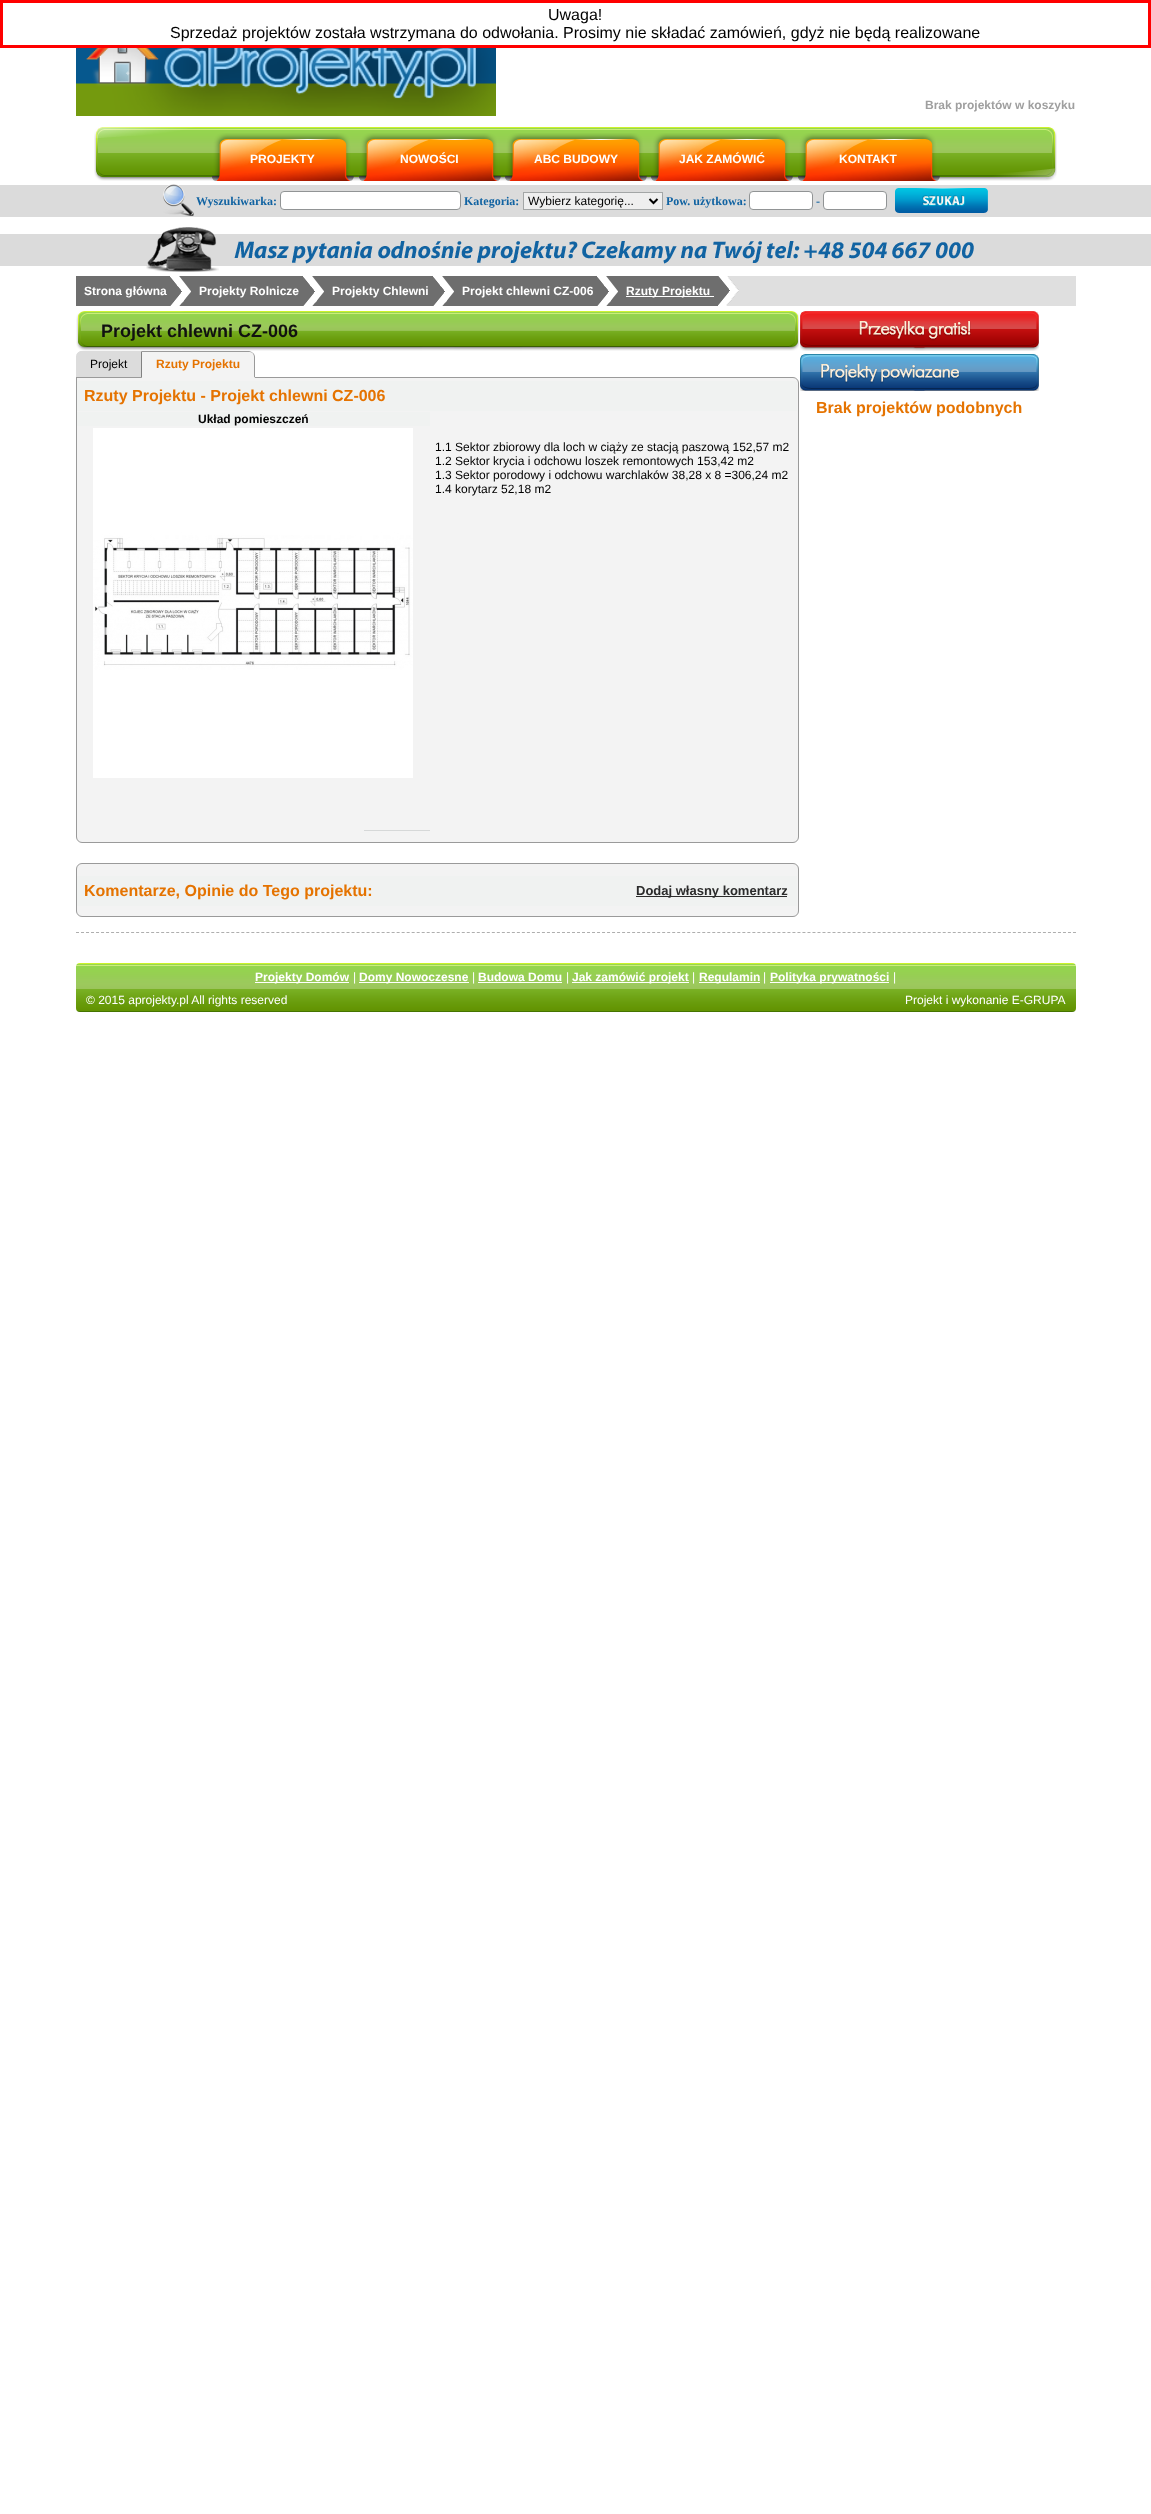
<svg xmlns="http://www.w3.org/2000/svg" width="1151" height="2514" viewBox="0 0 1151 2514">
  <rect width="100%" height="100%" fill="rgb(255,255,255)"/>
  <rect x="1.5" y="1.5" width="1148" height="45" fill="none" stroke="rgb(255,0,0)" stroke-width="3"/>
  <g font-family="Liberation Sans" font-size="16" fill="rgb(0,0,0)">
    <text x="548" y="20">Uwaga!</text>
    <text x="170" y="38">Sprzedaż projektów została wstrzymana do odwołania. Prosimy nie składać zamówień, gdyż nie będą realizowane</text>
  </g>
  <image x="76" y="48" width="420" height="68" href="pic1.png"/>
  <text x="925" y="109" font-family="Liberation Sans" font-size="12" font-weight="bold" fill="rgb(159,159,159)">Brak projektów w koszyku</text>
  <image x="94" y="127" width="963" height="54" href="pic2.png"/>
  <image x="212" y="133" width="142" height="48" href="pic3.png"/>
  <text x="250" y="163" font-family="Liberation Sans" font-size="12" font-weight="bold" fill="rgb(255,255,255)">PROJEKTY</text>
  <image x="359" y="133" width="142" height="48" href="pic3.png"/>
  <text x="400" y="163" font-family="Liberation Sans" font-size="12" font-weight="bold" fill="rgb(255,255,255)">NOWOŚCI</text>
  <image x="505" y="133" width="142" height="48" href="pic3.png"/>
  <text x="534" y="163" font-family="Liberation Sans" font-size="12" font-weight="bold" fill="rgb(255,255,255)">ABC BUDOWY</text>
  <image x="651" y="133" width="142" height="48" href="pic3.png"/>
  <text x="679" y="163" font-family="Liberation Sans" font-size="12" font-weight="bold" fill="rgb(255,255,255)">JAK ZAMÓWIĆ</text>
  <image x="798" y="133" width="142" height="48" href="pic3.png"/>
  <text x="839" y="163" font-family="Liberation Sans" font-size="12" font-weight="bold" fill="rgb(255,255,255)">KONTAKT</text>
  <rect x="0" y="185" width="1151" height="32" fill="rgb(219,219,219)"/>
  <image x="163" y="184" width="31" height="32" href="pic4.png"/>
  <text x="196" y="205" font-family="Liberation Serif" font-size="12" font-weight="bold" fill="rgb(17,99,162)">Wyszukiwarka:</text>
  <rect x="280.5" y="191.5" width="180" height="18" rx="3.5" fill="rgb(255,255,255)" stroke="rgb(145,148,149)"/>
  <text x="464" y="205" font-family="Liberation Serif" font-size="12" font-weight="bold" fill="rgb(17,99,162)">Kategoria:</text>
  <rect x="523.5" y="192.5" width="139" height="17" fill="rgb(239,239,239)" stroke="rgb(163,166,166)"/>
  <path d="M649.5 199L653.5 203L657.5 199" fill="none" stroke="rgb(0,0,0)" stroke-width="2"/>
  <text x="528" y="205" font-family="Liberation Sans" font-size="12" fill="rgb(0,0,0)">Wybierz kategorię...</text>
  <text x="666" y="205" font-family="Liberation Serif" font-size="12" font-weight="bold" fill="rgb(17,99,162)">Pow. użytkowa:</text>
  <rect x="749.5" y="191.5" width="63" height="18" rx="3.5" fill="rgb(255,255,255)" stroke="rgb(145,148,149)"/>
  <text x="816" y="205" font-family="Liberation Serif" font-size="12" font-weight="bold" fill="rgb(17,99,162)">-</text>
  <rect x="823.5" y="191.5" width="63" height="18" rx="3.5" fill="rgb(255,255,255)" stroke="rgb(145,148,149)"/>
  <image x="895" y="188" width="93" height="25" href="pic5.png"/>
  <rect x="0" y="234" width="1151" height="32" fill="rgb(219,219,219)"/>
  <image x="146" y="227" width="73" height="45" href="pic6.png"/>
  <image x="234" y="241" width="740" height="23" href="pic7.png"/>
  <rect x="739" y="276" width="337" height="30" fill="rgb(223,223,223)"/>
  <rect x="76" y="276" width="94" height="30" fill="rgb(110,110,110)"/>
  <image x="170" y="276" width="21" height="30" href="pic8.png"/>
  <text x="84" y="295" font-family="Liberation Sans" font-size="12" font-weight="bold" fill="rgb(255,255,255)">Strona główna</text>
  <rect x="191" y="276" width="112" height="30" fill="rgb(110,110,110)"/>
  <image x="303" y="276" width="21" height="30" href="pic8.png"/>
  <text x="199" y="295" font-family="Liberation Sans" font-size="12" font-weight="bold" fill="rgb(255,255,255)">Projekty Rolnicze</text>
  <rect x="324" y="276" width="109" height="30" fill="rgb(110,110,110)"/>
  <image x="433" y="276" width="21" height="30" href="pic8.png"/>
  <text x="332" y="295" font-family="Liberation Sans" font-size="12" font-weight="bold" fill="rgb(255,255,255)">Projekty Chlewni</text>
  <rect x="454" y="276" width="143" height="30" fill="rgb(110,110,110)"/>
  <image x="597" y="276" width="21" height="30" href="pic8.png"/>
  <text x="462" y="295" font-family="Liberation Sans" font-size="12" font-weight="bold" fill="rgb(255,255,255)">Projekt chlewni CZ-006</text>
  <rect x="618" y="276" width="100" height="30" fill="rgb(110,110,110)"/>
  <image x="718" y="276" width="21" height="30" href="pic9.png"/>
  <rect x="626" y="296" width="88" height="1" fill="rgb(255,255,255)"/>
  <text x="626" y="295" font-family="Liberation Sans" font-size="12" font-weight="bold" fill="rgb(255,255,255)">Rzuty Projektu</text>
  <image x="76" y="311" width="723" height="40" href="pic10.png"/>
  <text x="101" y="337" font-family="Liberation Sans" font-size="18" font-weight="bold" fill="rgb(17,17,17)">Projekt chlewni CZ-006</text>
  <path d="M76.5 377.5H793C796 377.5 798.5 380 798.5 383V837C798.5 840 796 842.5 793 842.5H82C79 842.5 76.5 840 76.5 837Z" fill="rgb(243,243,243)" stroke="rgb(154,154,154)"/>
  <path d="M82 351H142V378H76V357C76 353.5 78.5 351 82 351Z" fill="rgb(220,220,220)"/>
  <path d="M82 351C79 351 76 354 76 357C76 354 79 352 82 352H141L142 351Z" fill="rgb(220,220,220)"/>
  <path d="M142 351V378L141 377V352Z" fill="rgb(129,129,129)"/>
  <path d="M142 378L141 377H76V378Z" fill="rgb(154,154,154)"/>
  <text x="90" y="368" font-family="Liberation Sans" font-size="12" fill="rgb(0,0,0)">Projekt</text>
  <path d="M142 351H249C252.5 351 255 353.5 255 357V378H142Z" fill="rgb(243,243,243)"/>
  <path d="M142 351V352H250L253 353C252 352 250 351 249 351Z" fill="rgb(154,154,154)"/>
  <path d="M254 377V357C254 355.5 253.5 354 252.5 353.5L253 353C254 354 255 355.5 255 357V378Z" fill="rgb(154,154,154)"/>
  <path d="M255 378L254 377H142V378Z" fill="rgb(243,243,243)"/>
  <text x="156" y="368" font-family="Liberation Sans" font-size="12" font-weight="bold" fill="rgb(229,115,0)">Rzuty Projektu</text>
  <rect x="77" y="381" width="720" height="30" fill="rgb(240,242,241)"/>
  <text x="84" y="401" font-family="Liberation Sans" font-size="16" font-weight="bold" fill="rgb(229,115,0)">Rzuty Projektu - Projekt chlewni CZ-006</text>
  <rect x="77" y="412" width="353" height="14" fill="rgb(240,242,241)"/>
  <text x="198" y="423" font-family="Liberation Sans" font-size="12" font-weight="bold" fill="rgb(0,0,0)">Układ pomieszczeń</text>
  <image x="93" y="428" width="320" height="350" href="pic11.png"/>
  <rect x="364" y="830" width="66" height="1" fill="rgb(214,216,216)"/>
  <g font-family="Liberation Sans" font-size="12" fill="rgb(0,0,0)">
    <text>
      <tspan x="435" y="451">1.1 Sektor zbiorowy dla loch w ciąży ze stacją paszową 152,57 m2</tspan>
      <tspan x="435" y="465">1.2 Sektor krycia i odchowu loszek remontowych 153,42 m2</tspan>
      <tspan x="435" y="479">1.3 Sektor porodowy i odchowu warchlaków 38,28 x 8 =306,24 m2</tspan>
      <tspan x="435" y="493">1.4 korytarz 52,18 m2</tspan>
    </text>
  </g>
  <rect x="76.5" y="863.5" width="722" height="53" rx="5.5" fill="rgb(243,243,243)" stroke="rgb(154,154,154)"/>
  <rect x="77" y="876" width="720" height="30" fill="rgb(240,242,241)"/>
  <text x="84" y="896" font-family="Liberation Sans" font-size="16" font-weight="bold" fill="rgb(229,115,0)">Komentarze, Opinie do Tego projektu:</text>
  <rect x="636" y="896" width="151" height="1" fill="rgb(43,43,43)"/>
  <text x="636" y="895" font-family="Liberation Sans" font-size="13" font-weight="bold" fill="rgb(43,43,43)">Dodaj własny komentarz</text>
  <image x="800" y="311" width="239" height="40" href="pic12.png"/>
  <image x="800" y="354" width="239" height="37" href="pic13.png"/>
  <text x="816" y="413" font-family="Liberation Sans" font-size="16" font-weight="bold" fill="rgb(229,115,0)">Brak projektów podobnych</text>
  <path d="M76 932.5H1076" fill="none" stroke="rgb(174,174,174)" stroke-dasharray="3 2.01"/>
  <image x="76" y="963" width="1000" height="26" href="pic14.png"/>
  <rect x="255" y="982" width="94" height="1" fill="rgb(255,255,255)"/>
  <text x="255" y="981" font-family="Liberation Sans" font-size="12" font-weight="bold" fill="rgb(255,255,255)">Projekty Domów</text>
  <text x="353" y="981" font-family="Liberation Sans" font-size="12" fill="rgb(255,255,255)">|</text>
  <rect x="359" y="982" width="110" height="1" fill="rgb(255,255,255)"/>
  <text x="359" y="981" font-family="Liberation Sans" font-size="12" font-weight="bold" fill="rgb(255,255,255)">Domy Nowoczesne</text>
  <text x="472" y="981" font-family="Liberation Sans" font-size="12" fill="rgb(255,255,255)">|</text>
  <text x="478" y="981" font-family="Liberation Sans" font-size="12" font-weight="bold" fill="rgb(255,255,255)">Budowa Domu</text>
  <rect x="478" y="982" width="84" height="1" fill="rgb(255,255,255)"/>
  <text x="566" y="981" font-family="Liberation Sans" font-size="12" fill="rgb(255,255,255)">|</text>
  <rect x="572" y="982" width="117" height="1" fill="rgb(255,255,255)"/>
  <text x="572" y="981" font-family="Liberation Sans" font-size="12" font-weight="bold" fill="rgb(255,255,255)">Jak zamówić projekt</text>
  <text x="692" y="981" font-family="Liberation Sans" font-size="12" fill="rgb(255,255,255)">|</text>
  <rect x="699" y="982" width="61" height="1" fill="rgb(255,255,255)"/>
  <text x="699" y="981" font-family="Liberation Sans" font-size="12" font-weight="bold" fill="rgb(255,255,255)">Regulamin</text>
  <text x="763" y="981" font-family="Liberation Sans" font-size="12" fill="rgb(255,255,255)">|</text>
  <rect x="770" y="982" width="119" height="1" fill="rgb(255,255,255)"/>
  <text x="770" y="981" font-family="Liberation Sans" font-size="12" font-weight="bold" fill="rgb(255,255,255)">Polityka prywatności</text>
  <text x="893" y="981" font-family="Liberation Sans" font-size="12" fill="rgb(255,255,255)">|</text>
  <image x="76" y="989" width="1000" height="23" href="pic15.png"/>
  <g font-family="Liberation Sans" font-size="12" fill="rgb(255,255,255)">
    <text x="86" y="1004">© 2015 aprojekty.pl All rights reserved</text>
    <text x="905" y="1004">Projekt i wykonanie E-GRUPA</text>
  </g>
</svg>
